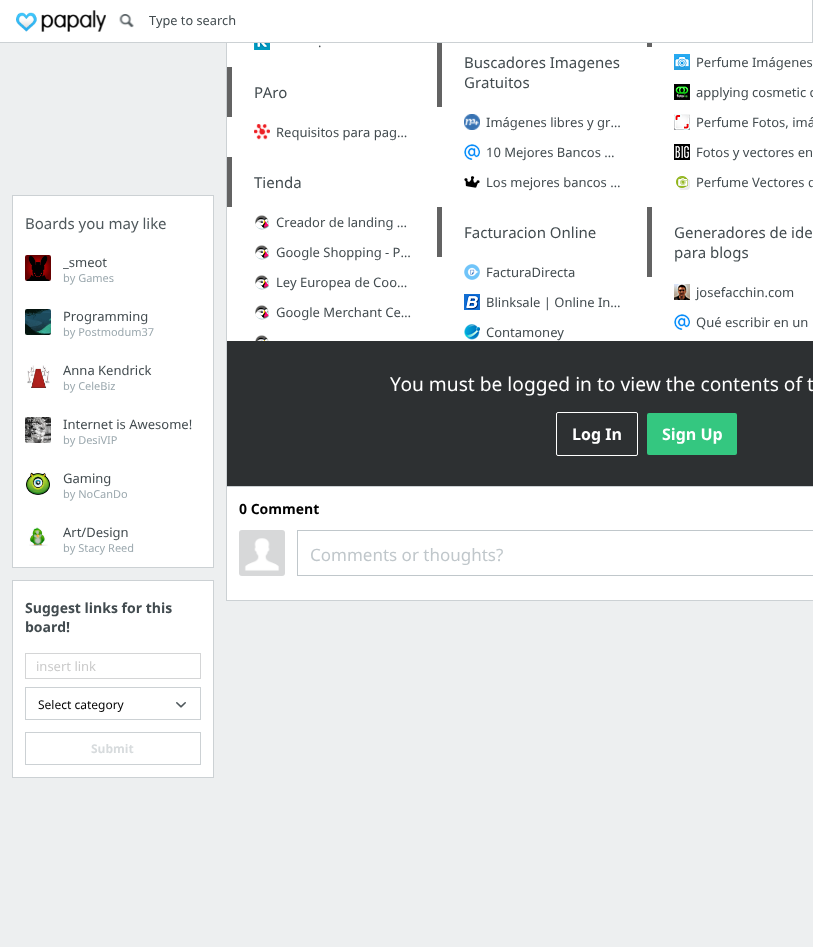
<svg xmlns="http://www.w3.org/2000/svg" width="813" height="947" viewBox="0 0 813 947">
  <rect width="100%" height="100%" fill="rgb(237,239,240)"/>
  <rect x="227" y="43" width="586" height="557" fill="rgb(255,255,255)"/>
  <rect x="437" y="37" width="5" height="70" fill="rgb(99,99,99)"/>
  <rect x="0" y="0" width="812" height="42" fill="rgb(255,255,255)"/>
  <rect x="0" y="42" width="813" height="1" fill="rgb(204,209,212)"/>
  <image x="16" y="10" width="90" height="22" href="pic1.png"/>
  <image x="119" y="14" width="15" height="14" href="pic2.png"/>
  <text x="149" y="25" font-family="Noto Sans" font-size="12.75" fill="rgb(66,75,79)">Type to search</text>
  <rect x="812" y="0" width="1" height="42" fill="rgb(204,209,212)"/>
  <rect x="12.5" y="195.5" width="201" height="372" fill="rgb(255,255,255)" stroke="rgb(204,209,212)"/>
  <text x="25" y="229" font-family="Noto Sans" font-size="15" fill="rgb(79,88,92)">Boards you may like</text>
  <image x="25" y="255" width="26" height="26" href="pic3.png"/>
  <text x="63" y="267" font-family="Noto Sans" font-size="13" fill="rgb(66,75,79)">_smeot</text>
  <text x="63" y="282" font-family="Noto Sans" font-size="11" fill="rgb(155,168,174)">by Games</text>
  <image x="25" y="309" width="26" height="26" href="pic4.png"/>
  <text x="63" y="321" font-family="Noto Sans" font-size="13" fill="rgb(66,75,79)">Programming</text>
  <text x="63" y="336" font-family="Noto Sans" font-size="11" fill="rgb(155,168,174)">by Postmodum37</text>
  <image x="27" y="365" width="23" height="23" href="pic5.png"/>
  <text x="63" y="375" font-family="Noto Sans" font-size="13" fill="rgb(66,75,79)">Anna Kendrick</text>
  <text x="63" y="390" font-family="Noto Sans" font-size="11" fill="rgb(155,168,174)">by CeleBiz</text>
  <image x="25" y="417" width="26" height="26" href="pic6.png"/>
  <text x="63" y="429" font-family="Noto Sans" font-size="13" fill="rgb(66,75,79)">Internet is Awesome!</text>
  <text x="63" y="444" font-family="Noto Sans" font-size="11" fill="rgb(155,168,174)">by DesiVIP</text>
  <image x="25" y="472" width="25" height="23" href="pic7.png"/>
  <text x="63" y="483" font-family="Noto Sans" font-size="13" fill="rgb(66,75,79)">Gaming</text>
  <text x="63" y="498" font-family="Noto Sans" font-size="11" fill="rgb(155,168,174)">by NoCanDo</text>
  <image x="29" y="527" width="19" height="19" href="pic8.png"/>
  <text x="63" y="537" font-family="Noto Sans" font-size="13" fill="rgb(66,75,79)">Art/Design</text>
  <text x="63" y="552" font-family="Noto Sans" font-size="11" fill="rgb(155,168,174)">by Stacy Reed</text>
  <rect x="12.5" y="580.5" width="201" height="197" fill="rgb(255,255,255)" stroke="rgb(204,209,212)"/>
  <g font-family="Noto Sans" font-size="14" font-weight="bold" fill="rgb(66,75,79)">
    <text>
      <tspan x="25" y="613">Suggest links for this</tspan>
      <tspan x="25" y="632">board!</tspan>
    </text>
  </g>
  <rect x="25.5" y="653.5" width="175" height="25" fill="none" stroke="rgb(212,213,214)"/>
  <text x="36" y="671" font-family="Noto Sans" font-size="13" fill="rgb(202,202,202)">insert link</text>
  <rect x="25.5" y="687.5" width="175" height="32" fill="none" stroke="rgb(204,209,212)"/>
  <text x="38" y="709" font-family="Noto Sans" font-size="12" fill="rgb(0,0,0)">Select category</text>
  <image x="176" y="702" width="10" height="6" href="pic9.png"/>
  <rect x="25.5" y="732.5" width="175" height="32" fill="none" stroke="rgb(204,209,212)"/>
  <text x="91" y="753" font-family="Noto Sans" font-size="12" font-weight="bold" fill="rgb(215,219,221)">Submit</text>
  <rect x="226" y="486" width="587" height="1" fill="rgb(204,209,212)"/>
  <rect x="226" y="43" width="1" height="444" fill="rgb(204,209,212)"/>
  <image x="254" y="43" width="16" height="7" href="pic10.png"/>
  <text x="318" y="47" font-family="Noto Sans" font-size="13" fill="rgb(66,75,79)">.</text>
  <rect x="227" y="67" width="5" height="50" fill="rgb(99,99,99)"/>
  <text x="254" y="98" font-family="Noto Sans" font-size="15" fill="rgb(66,75,79)">PAro</text>
  <image x="254" y="124" width="16" height="16" href="pic11.png"/>
  <text x="276" y="137" font-family="Noto Sans" font-size="13" fill="rgb(66,75,79)">Requisitos para pag…</text>
  <rect x="227" y="157" width="5" height="50" fill="rgb(99,99,99)"/>
  <text x="254" y="188" font-family="Noto Sans" font-size="15" fill="rgb(66,75,79)">Tienda</text>
  <image x="255" y="215" width="14" height="15" href="pic12.png"/>
  <text x="276" y="227" font-family="Noto Sans" font-size="13" fill="rgb(66,75,79)">Creador de landing …</text>
  <image x="255" y="245" width="14" height="15" href="pic12.png"/>
  <text x="276" y="257" font-family="Noto Sans" font-size="13" fill="rgb(66,75,79)">Google Shopping - P…</text>
  <image x="255" y="275" width="14" height="15" href="pic12.png"/>
  <text x="276" y="287" font-family="Noto Sans" font-size="13" fill="rgb(66,75,79)">Ley Europea de Coo…</text>
  <image x="255" y="305" width="14" height="15" href="pic12.png"/>
  <text x="276" y="317" font-family="Noto Sans" font-size="13" fill="rgb(66,75,79)">Google Merchant Ce…</text>
  <image x="255" y="335" width="14" height="6" href="pic13.png"/>
  <g font-family="Noto Sans" font-size="15" fill="rgb(66,75,79)">
    <text>
      <tspan x="464" y="68">Buscadores Imagenes</tspan>
      <tspan x="464" y="88">Gratuitos</tspan>
    </text>
  </g>
  <image x="464" y="114" width="16" height="16" href="pic14.png"/>
  <text x="486" y="127" font-family="Noto Sans" font-size="13" fill="rgb(66,75,79)">Imágenes libres y gr…</text>
  <image x="464" y="144" width="16" height="16" href="pic15.png"/>
  <text x="486" y="157" font-family="Noto Sans" font-size="13" fill="rgb(66,75,79)">10 Mejores Bancos …</text>
  <image x="464" y="176" width="16" height="12" href="pic16.png"/>
  <text x="486" y="187" font-family="Noto Sans" font-size="13" fill="rgb(66,75,79)">Los mejores bancos …</text>
  <rect x="437" y="207" width="5" height="50" fill="rgb(99,99,99)"/>
  <text x="464" y="238" font-family="Noto Sans" font-size="15" fill="rgb(66,75,79)">Facturacion Online</text>
  <image x="464" y="264" width="16" height="16" href="pic17.png"/>
  <text x="486" y="277" font-family="Noto Sans" font-size="13" fill="rgb(66,75,79)">FacturaDirecta</text>
  <image x="464" y="294" width="16" height="16" href="pic18.png"/>
  <text x="486" y="307" font-family="Noto Sans" font-size="13" fill="rgb(66,75,79)">Blinksale | Online In…</text>
  <image x="464" y="324" width="16" height="16" href="pic19.png"/>
  <text x="486" y="337" font-family="Noto Sans" font-size="13" fill="rgb(66,75,79)">Contamoney</text>
  <rect x="647" y="43" width="5" height="4" fill="rgb(99,99,99)"/>
  <image x="674" y="54" width="16" height="16" href="pic20.png"/>
  <text x="696" y="67" font-family="Noto Sans" font-size="13" fill="rgb(66,75,79)">Perfume Imágenes</text>
  <image x="674" y="84" width="16" height="16" href="pic21.png"/>
  <text x="696" y="97" font-family="Noto Sans" font-size="13" fill="rgb(66,75,79)">applying cosmetic c</text>
  <image x="674" y="114" width="16" height="16" href="pic22.png"/>
  <text x="696" y="127" font-family="Noto Sans" font-size="13" fill="rgb(66,75,79)">Perfume Fotos, imá</text>
  <image x="674" y="144" width="16" height="16" href="pic23.png"/>
  <text x="696" y="157" font-family="Noto Sans" font-size="13" fill="rgb(66,75,79)">Fotos y vectores en</text>
  <image x="676" y="176" width="14" height="14" href="pic24.png"/>
  <text x="696" y="187" font-family="Noto Sans" font-size="13" fill="rgb(66,75,79)">Perfume Vectores d</text>
  <rect x="647" y="207" width="5" height="70" fill="rgb(99,99,99)"/>
  <g font-family="Noto Sans" font-size="15" fill="rgb(66,75,79)">
    <text>
      <tspan x="674" y="238">Generadores de ide</tspan>
      <tspan x="674" y="258">para blogs</tspan>
    </text>
  </g>
  <image x="674" y="284" width="16" height="16" href="pic25.png"/>
  <text x="696" y="297" font-family="Noto Sans" font-size="13" fill="rgb(66,75,79)">josefacchin.com</text>
  <image x="674" y="314" width="16" height="16" href="pic15.png"/>
  <text x="696" y="327" font-family="Noto Sans" font-size="13" fill="rgb(66,75,79)">Qué escribir en un</text>
  <rect x="227" y="341" width="586" height="145" fill="rgb(45,48,50)"/>
  <text x="390" y="391" font-family="Noto Sans" font-size="19.2" fill="rgb(255,255,255)">You must be logged in to view the contents of t</text>
  <rect x="556.5" y="412.5" width="81" height="43" rx="1.5" fill="none" stroke="rgb(255,255,255)"/>
  <text x="572" y="440" font-family="Noto Sans" font-size="16" font-weight="bold" fill="rgb(255,255,255)">Log In</text>
  <rect x="647" y="413" width="90" height="42" rx="2" fill="rgb(52,199,128)"/>
  <text x="662" y="440" font-family="Noto Sans" font-size="16" font-weight="bold" fill="rgb(255,255,255)">Sign Up</text>
  <rect x="226" y="600" width="587" height="1" fill="rgb(204,209,212)"/>
  <rect x="226" y="487" width="1" height="114" fill="rgb(204,209,212)"/>
  <text x="239" y="514" font-family="Noto Sans" font-size="14" font-weight="bold" fill="rgb(0,0,0)">0 Comment</text>
  <image x="239" y="530" width="46" height="46" href="pic26.png"/>
  <rect x="297.5" y="530.5" width="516" height="45" fill="none" stroke="rgb(192,199,203)"/>
  <text x="310" y="561" font-family="Noto Sans" font-size="17" fill="rgb(192,199,203)">Comments or thoughts?</text>
</svg>
